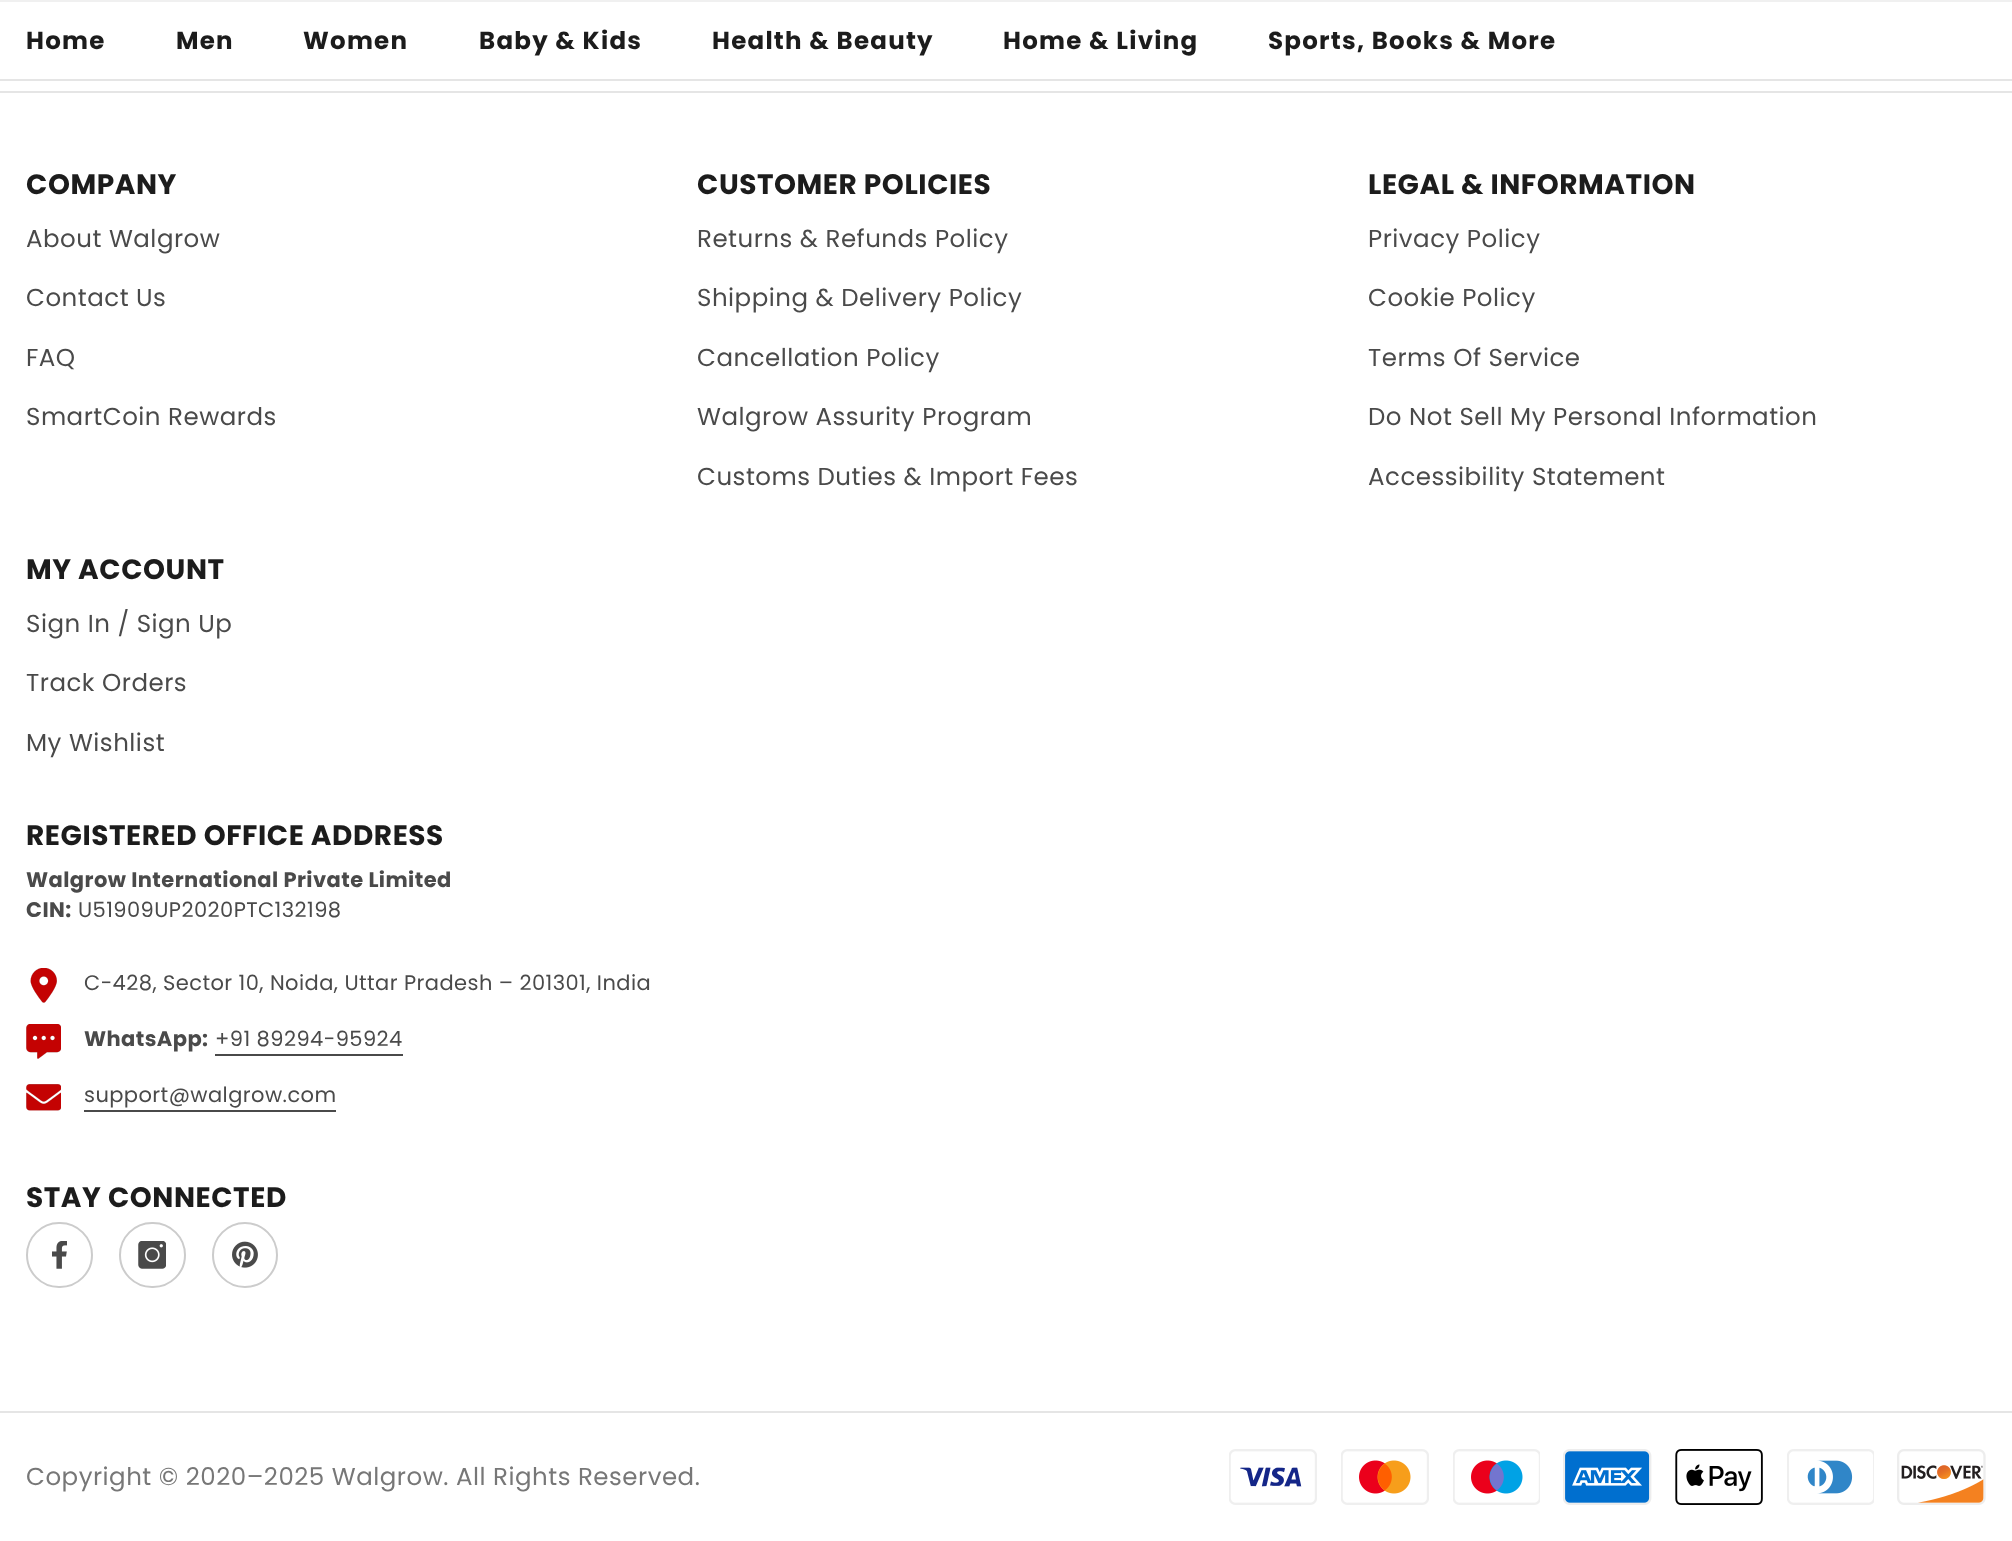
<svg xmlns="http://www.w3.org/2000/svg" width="2012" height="1541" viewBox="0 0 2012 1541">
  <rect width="100%" height="100%" fill="rgb(255,255,255)"/>
  <rect x="0" y="0" width="2012" height="2" fill="rgb(240,240,240)"/>
  <rect x="0" y="79" width="2012" height="2" fill="rgb(229,229,229)"/>
  <g font-family="Poppins" font-size="24.5" font-weight="bold" letter-spacing="1.25" fill="rgb(28,28,28)">
    <text x="26" y="49">Home</text>
    <text x="176" y="49">Men</text>
    <text x="303" y="49">Women</text>
    <text x="479" y="49">Baby &amp; Kids</text>
    <text x="712" y="49">Health &amp; Beauty</text>
    <text x="1003" y="49">Home &amp; Living</text>
    <text x="1268" y="49">Sports, Books &amp; More</text>
  </g>
  <rect x="0" y="91" width="2012" height="2" fill="rgb(229,229,229)"/>
  <text x="26" y="194" font-family="Poppins" font-size="28" font-weight="bold" letter-spacing="0.55" fill="rgb(28,28,28)">COMPANY</text>
  <g font-family="Poppins" font-size="24.5" letter-spacing="0.5" fill="rgb(74,74,74)">
    <text x="26" y="247">About Walgrow</text>
    <text x="26" y="306">Contact Us</text>
    <text x="26" y="366">FAQ</text>
    <text x="26" y="425">SmartCoin Rewards</text>
  </g>
  <text x="697" y="194" font-family="Poppins" font-size="28" font-weight="bold" letter-spacing="0.55" fill="rgb(28,28,28)">CUSTOMER POLICIES</text>
  <g font-family="Poppins" font-size="24.5" letter-spacing="0.5" fill="rgb(74,74,74)">
    <text x="697" y="247">Returns &amp; Refunds Policy</text>
    <text x="697" y="306">Shipping &amp; Delivery Policy</text>
    <text x="697" y="366">Cancellation Policy</text>
    <text x="697" y="425">Walgrow Assurity Program</text>
    <text x="697" y="485">Customs Duties &amp; Import Fees</text>
  </g>
  <text x="1368" y="194" font-family="Poppins" font-size="28" font-weight="bold" letter-spacing="0.55" fill="rgb(28,28,28)">LEGAL &amp; INFORMATION</text>
  <g font-family="Poppins" font-size="24.5" letter-spacing="0.5" fill="rgb(74,74,74)">
    <text x="1368" y="247">Privacy Policy</text>
    <text x="1368" y="306">Cookie Policy</text>
    <text x="1368" y="366">Terms Of Service</text>
    <text x="1368" y="425">Do Not Sell My Personal Information</text>
    <text x="1368" y="485">Accessibility Statement</text>
  </g>
  <text x="26" y="579" font-family="Poppins" font-size="28" font-weight="bold" letter-spacing="0.55" fill="rgb(28,28,28)">MY ACCOUNT</text>
  <g font-family="Poppins" font-size="24.5" letter-spacing="0.5" fill="rgb(74,74,74)">
    <text x="26" y="632">Sign In / Sign Up</text>
    <text x="26" y="691">Track Orders</text>
    <text x="26" y="751">My Wishlist</text>
  </g>
  <text x="26" y="845" font-family="Poppins" font-size="28" font-weight="bold" letter-spacing="0.55" fill="rgb(28,28,28)">REGISTERED OFFICE ADDRESS</text>
  <g font-family="Poppins" font-size="21" font-weight="bold" letter-spacing="0.42" fill="rgb(74,74,74)">
    <text>
      <tspan x="26" y="887">Walgrow International Private Limited</tspan>
      <tspan x="26" y="917">CIN:</tspan>
    </text>
  </g>
  <text x="78" y="917" font-family="Poppins" font-size="21" letter-spacing="0.42" fill="rgb(74,74,74)">U51909UP2020PTC132198</text>
  <image x="30" y="968" width="27" height="35" href="pic1.png"/>
  <text x="84" y="990" font-family="Poppins" font-size="21" letter-spacing="0.42" fill="rgb(74,74,74)">C-428, Sector 10, Noida, Uttar Pradesh – 201301, India</text>
  <image x="26" y="1024" width="35" height="35" href="pic2.png"/>
  <text x="84" y="1046" font-family="Poppins" font-size="21" font-weight="bold" letter-spacing="0.42" fill="rgb(74,74,74)">WhatsApp:</text>
  <text x="215" y="1046" font-family="Poppins" font-size="21" letter-spacing="0.42" fill="rgb(74,74,74)">+91 89294-95924</text>
  <rect x="215" y="1054" width="188" height="2" fill="rgb(74,74,74)"/>
  <image x="26" y="1084" width="35" height="27" href="pic3.png"/>
  <text x="84" y="1102" font-family="Poppins" font-size="21" letter-spacing="0.42" fill="rgb(74,74,74)">support@walgrow.com</text>
  <rect x="84" y="1110" width="252" height="2" fill="rgb(74,74,74)"/>
  <text x="26" y="1207" font-family="Poppins" font-size="28" font-weight="bold" letter-spacing="0.55" fill="rgb(28,28,28)">STAY CONNECTED</text>
  <rect x="27" y="1223" width="65" height="64" rx="32" fill="none" stroke="rgb(204,204,204)" stroke-width="2"/>
  <image x="52" y="1241" width="15" height="28" href="pic4.png"/>
  <rect x="120" y="1223" width="65" height="64" rx="32" fill="none" stroke="rgb(204,204,204)" stroke-width="2"/>
  <image x="138" y="1241" width="28" height="28" href="pic5.png"/>
  <circle cx="245" cy="1255" r="32" fill="none" stroke="rgb(204,204,204)" stroke-width="2"/>
  <image x="232" y="1241" width="26" height="27" href="pic6.png"/>
  <rect x="0" y="1411" width="2012" height="2" fill="rgb(229,229,229)"/>
  <text x="26" y="1485" font-family="Poppins" font-size="24.5" letter-spacing="0.5" fill="rgb(119,119,119)">Copyright © 2020–2025 Walgrow. All Rights Reserved.</text>
  <image x="1229" y="1449" width="88" height="56" href="pic7.png"/>
  <image x="1341" y="1449" width="88" height="56" href="pic8.png"/>
  <image x="1453" y="1449" width="87" height="56" href="pic9.png"/>
  <image x="1563" y="1449" width="89" height="56" href="pic10.png"/>
  <image x="1675" y="1449" width="88" height="56" href="pic11.png"/>
  <image x="1787" y="1449" width="87" height="56" href="pic12.png"/>
  <image x="1897" y="1449" width="89" height="56" href="pic13.png"/>
</svg>
